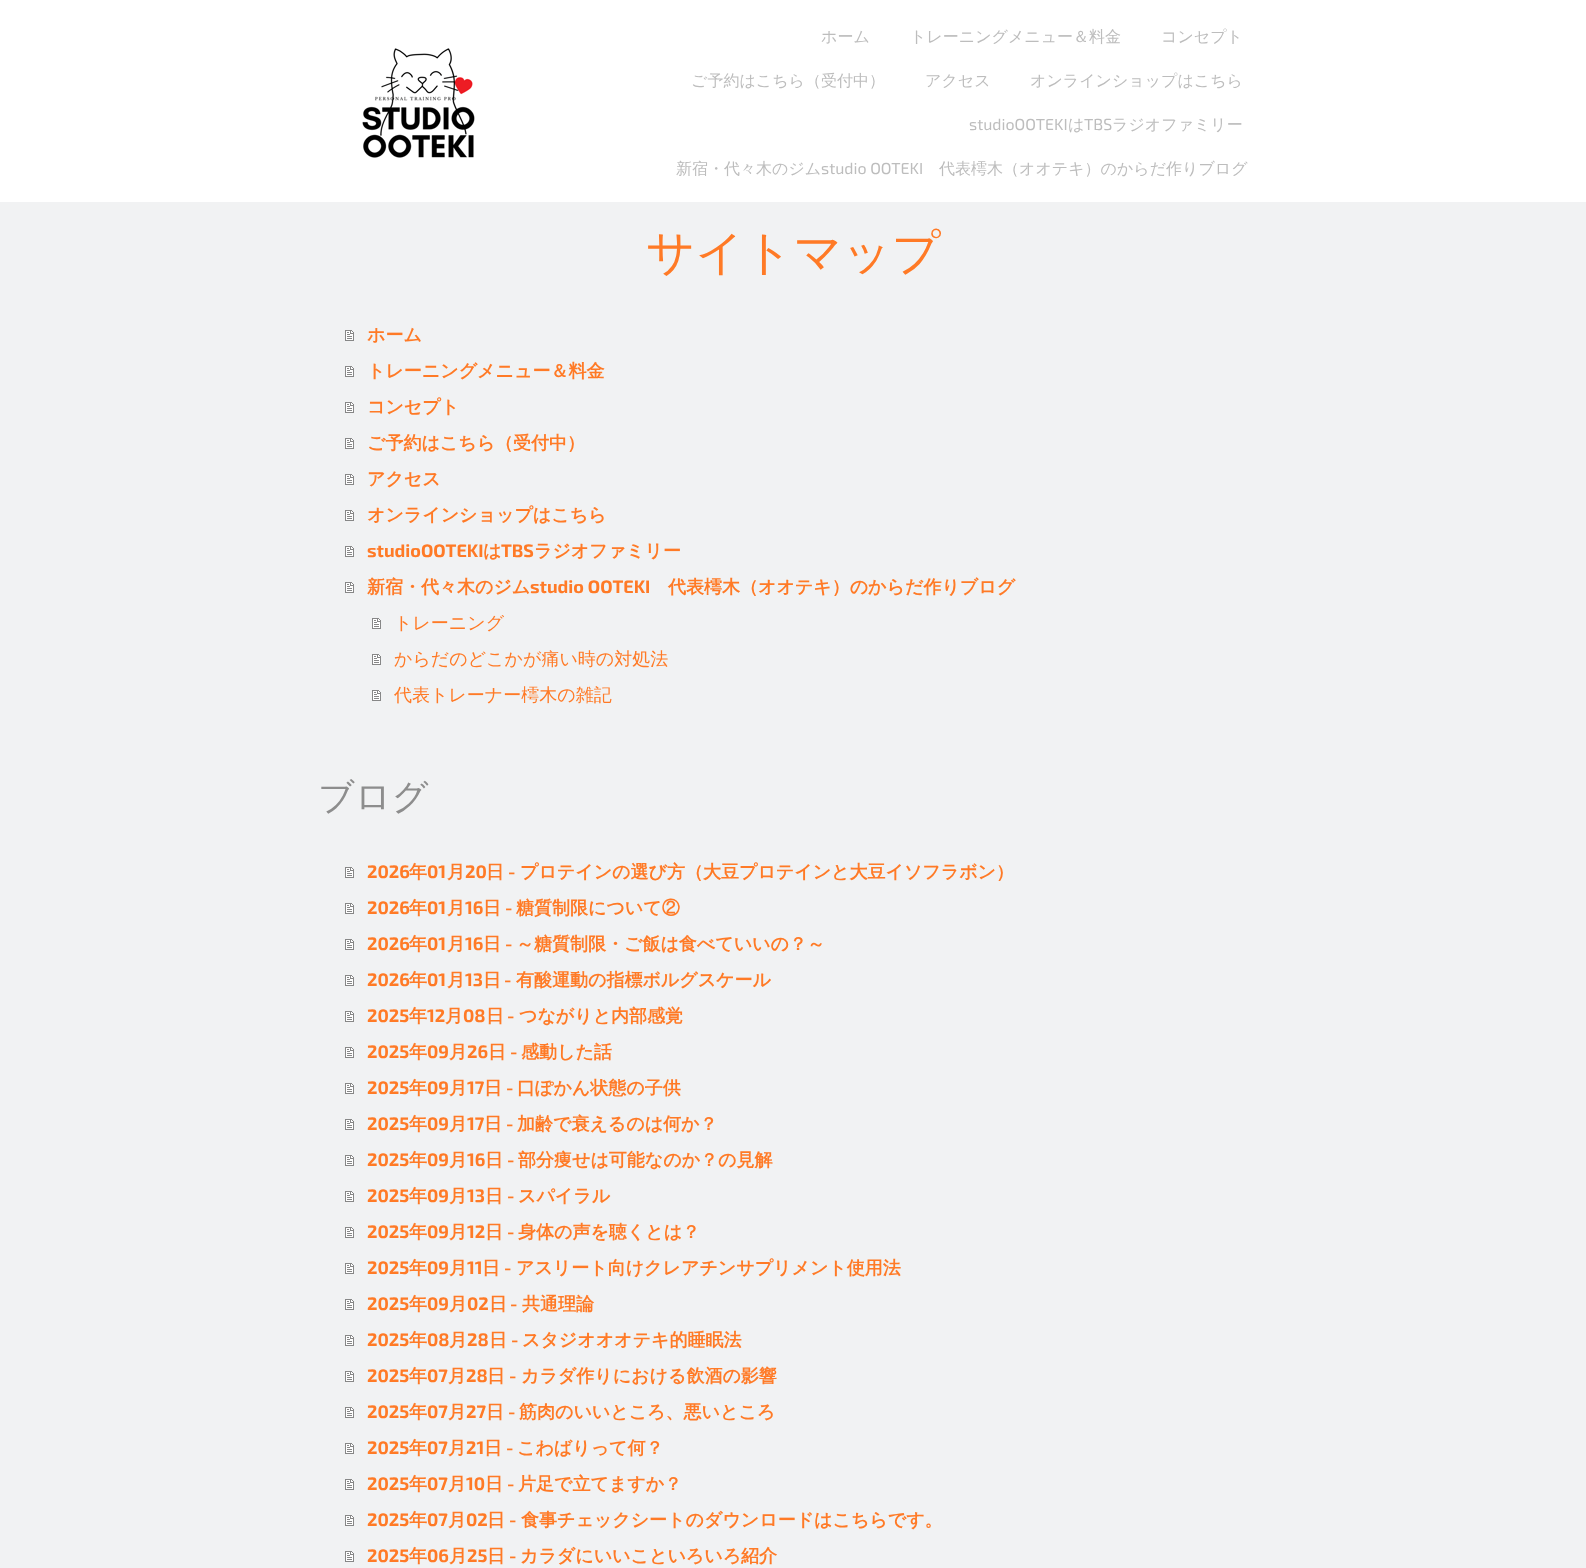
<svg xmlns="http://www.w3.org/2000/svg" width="1586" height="1568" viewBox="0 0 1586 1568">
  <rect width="100%" height="100%" fill="rgb(241,242,243)"/>
  <rect x="0" y="0" width="1586" height="202" fill="rgb(255,255,255)"/>
  <image x="362" y="48" width="113" height="110" href="pic1.png"/>
  <g font-family="WenQuanYi Zen Hei" font-size="16" font-weight="500" fill="rgb(189,189,189)">
    <text x="821" y="42">ホーム</text>
    <text x="910" y="42">トレーニングメニュー＆料金</text>
    <text x="1161" y="42">コンセプト</text>
    <text x="691" y="86">ご予約はこちら（受付中）</text>
    <text x="925" y="86">アクセス</text>
    <text x="1030" y="86">オンラインショップはこちら</text>
  </g>
  <text x="969" y="130" font-family="'Exo 2'" font-size="16" fill="rgb(189,189,189)">studioOOTEKI</text>
  <text x="1068" y="130" font-family="WenQuanYi Zen Hei" font-size="16" font-weight="500" fill="rgb(189,189,189)">は</text>
  <text x="1084" y="130" font-family="'Exo 2'" font-size="16" fill="rgb(189,189,189)">TBS</text>
  <g font-family="WenQuanYi Zen Hei" font-size="16" font-weight="500" fill="rgb(189,189,189)">
    <text x="1112" y="130">ラジオファミリー</text>
    <text x="676" y="174">新宿・代々木のジム</text>
  </g>
  <text x="821" y="174" font-family="'Exo 2'" font-size="16" fill="rgb(189,189,189)">studio OOTEKI</text>
  <text x="939" y="174" font-family="WenQuanYi Zen Hei" font-size="16" font-weight="500" fill="rgb(189,189,189)">代表樗木（オオテキ）のからだ作りブログ</text>
  <text x="646" y="269" font-family="WenQuanYi Zen Hei" font-size="48" font-weight="500" fill="rgb(255,122,38)">サイトマップ</text>
  <image x="345" y="330" width="9" height="11" href="pic2.png"/>
  <text x="367" y="341" font-family="WenQuanYi Zen Hei" font-size="18" font-weight="bold" fill="rgb(255,122,38)">ホーム</text>
  <image x="345" y="366" width="9" height="11" href="pic2.png"/>
  <text x="367" y="377" font-family="WenQuanYi Zen Hei" font-size="18" font-weight="bold" fill="rgb(255,122,38)">トレーニングメニュー＆料金</text>
  <image x="345" y="402" width="9" height="11" href="pic2.png"/>
  <text x="367" y="413" font-family="WenQuanYi Zen Hei" font-size="18" font-weight="bold" fill="rgb(255,122,38)">コンセプト</text>
  <image x="345" y="438" width="9" height="11" href="pic2.png"/>
  <text x="367" y="449" font-family="WenQuanYi Zen Hei" font-size="18" font-weight="bold" fill="rgb(255,122,38)">ご予約はこちら（受付中）</text>
  <image x="345" y="474" width="9" height="11" href="pic2.png"/>
  <text x="367" y="485" font-family="WenQuanYi Zen Hei" font-size="18" font-weight="bold" fill="rgb(255,122,38)">アクセス</text>
  <image x="345" y="510" width="9" height="11" href="pic2.png"/>
  <text x="367" y="521" font-family="WenQuanYi Zen Hei" font-size="18" font-weight="bold" fill="rgb(255,122,38)">オンラインショップはこちら</text>
  <image x="345" y="546" width="9" height="11" href="pic2.png"/>
  <text x="367" y="557" font-family="'Exo 2'" font-size="18" font-weight="bold" fill="rgb(255,122,38)">studioOOTEKI</text>
  <text x="483" y="557" font-family="WenQuanYi Zen Hei" font-size="18" font-weight="bold" fill="rgb(255,122,38)">は</text>
  <text x="501" y="557" font-family="'Exo 2'" font-size="18" font-weight="bold" fill="rgb(255,122,38)">TBS</text>
  <text x="534" y="557" font-family="WenQuanYi Zen Hei" font-size="18" font-weight="bold" fill="rgb(255,122,38)">ラジオファミリー</text>
  <image x="345" y="582" width="9" height="11" href="pic2.png"/>
  <text x="367" y="593" font-family="WenQuanYi Zen Hei" font-size="18" font-weight="bold" fill="rgb(255,122,38)">新宿・代々木のジム</text>
  <text x="530" y="593" font-family="'Exo 2'" font-size="18" font-weight="bold" fill="rgb(255,122,38)">studio OOTEKI</text>
  <text x="668" y="593" font-family="WenQuanYi Zen Hei" font-size="18" font-weight="bold" fill="rgb(255,122,38)">代表樗木（オオテキ）のからだ作りブログ</text>
  <image x="372" y="618" width="9" height="11" href="pic2.png"/>
  <text x="394" y="629" font-family="WenQuanYi Zen Hei" font-size="18" font-weight="500" fill="rgb(255,122,38)">トレーニング</text>
  <image x="372" y="654" width="9" height="11" href="pic2.png"/>
  <text x="394" y="665" font-family="WenQuanYi Zen Hei" font-size="18" font-weight="500" fill="rgb(255,122,38)">からだのどこかが痛い時の対処法</text>
  <image x="372" y="690" width="9" height="11" href="pic2.png"/>
  <text x="394" y="701" font-family="WenQuanYi Zen Hei" font-size="18" font-weight="500" fill="rgb(255,122,38)">代表トレーナー樗木の雑記</text>
  <text x="318" y="809" font-family="WenQuanYi Zen Hei" font-size="36" font-weight="500" fill="rgb(141,141,141)">ブログ</text>
  <image x="345" y="867" width="9" height="11" href="pic2.png"/>
  <text x="367" y="878" font-family="'Exo 2'" font-size="18" font-weight="bold" fill="rgb(255,122,38)">2026</text>
  <text x="409" y="878" font-family="WenQuanYi Zen Hei" font-size="18" font-weight="bold" fill="rgb(255,122,38)">年</text>
  <text x="427" y="878" font-family="'Exo 2'" font-size="18" font-weight="bold" fill="rgb(255,122,38)">01</text>
  <text x="447" y="878" font-family="WenQuanYi Zen Hei" font-size="18" font-weight="bold" fill="rgb(255,122,38)">月</text>
  <text x="465" y="878" font-family="'Exo 2'" font-size="18" font-weight="bold" fill="rgb(255,122,38)">20</text>
  <text x="486" y="878" font-family="WenQuanYi Zen Hei" font-size="18" font-weight="bold" fill="rgb(255,122,38)">日</text>
  <text x="508" y="878" font-family="'Exo 2'" font-size="18" font-weight="bold" fill="rgb(255,122,38)">-</text>
  <text x="520" y="878" font-family="WenQuanYi Zen Hei" font-size="18" font-weight="bold" fill="rgb(255,122,38)">プロテインの選び方（大豆プロテインと大豆イソフラボン）</text>
  <image x="345" y="903" width="9" height="11" href="pic2.png"/>
  <text x="367" y="914" font-family="'Exo 2'" font-size="18" font-weight="bold" fill="rgb(255,122,38)">2026</text>
  <text x="409" y="914" font-family="WenQuanYi Zen Hei" font-size="18" font-weight="bold" fill="rgb(255,122,38)">年</text>
  <text x="427" y="914" font-family="'Exo 2'" font-size="18" font-weight="bold" fill="rgb(255,122,38)">01</text>
  <text x="447" y="914" font-family="WenQuanYi Zen Hei" font-size="18" font-weight="bold" fill="rgb(255,122,38)">月</text>
  <text x="465" y="914" font-family="'Exo 2'" font-size="18" font-weight="bold" fill="rgb(255,122,38)">16</text>
  <text x="483" y="914" font-family="WenQuanYi Zen Hei" font-size="18" font-weight="bold" fill="rgb(255,122,38)">日</text>
  <text x="505" y="914" font-family="'Exo 2'" font-size="18" font-weight="bold" fill="rgb(255,122,38)">-</text>
  <text x="516" y="914" font-family="WenQuanYi Zen Hei" font-size="18" font-weight="bold" fill="rgb(255,122,38)">糖質制限について②</text>
  <image x="345" y="939" width="9" height="11" href="pic2.png"/>
  <text x="367" y="950" font-family="'Exo 2'" font-size="18" font-weight="bold" fill="rgb(255,122,38)">2026</text>
  <text x="409" y="950" font-family="WenQuanYi Zen Hei" font-size="18" font-weight="bold" fill="rgb(255,122,38)">年</text>
  <text x="427" y="950" font-family="'Exo 2'" font-size="18" font-weight="bold" fill="rgb(255,122,38)">01</text>
  <text x="447" y="950" font-family="WenQuanYi Zen Hei" font-size="18" font-weight="bold" fill="rgb(255,122,38)">月</text>
  <text x="465" y="950" font-family="'Exo 2'" font-size="18" font-weight="bold" fill="rgb(255,122,38)">16</text>
  <text x="483" y="950" font-family="WenQuanYi Zen Hei" font-size="18" font-weight="bold" fill="rgb(255,122,38)">日</text>
  <text x="505" y="950" font-family="'Exo 2'" font-size="18" font-weight="bold" fill="rgb(255,122,38)">-</text>
  <text x="516" y="950" font-family="WenQuanYi Zen Hei" font-size="18" font-weight="bold" fill="rgb(255,122,38)">～糖質制限・ご飯は食べていいの？～</text>
  <image x="345" y="975" width="9" height="11" href="pic2.png"/>
  <text x="367" y="986" font-family="'Exo 2'" font-size="18" font-weight="bold" fill="rgb(255,122,38)">2026</text>
  <text x="409" y="986" font-family="WenQuanYi Zen Hei" font-size="18" font-weight="bold" fill="rgb(255,122,38)">年</text>
  <text x="427" y="986" font-family="'Exo 2'" font-size="18" font-weight="bold" fill="rgb(255,122,38)">01</text>
  <text x="447" y="986" font-family="WenQuanYi Zen Hei" font-size="18" font-weight="bold" fill="rgb(255,122,38)">月</text>
  <text x="465" y="986" font-family="'Exo 2'" font-size="18" font-weight="bold" fill="rgb(255,122,38)">13</text>
  <text x="483" y="986" font-family="WenQuanYi Zen Hei" font-size="18" font-weight="bold" fill="rgb(255,122,38)">日</text>
  <text x="504" y="986" font-family="'Exo 2'" font-size="18" font-weight="bold" fill="rgb(255,122,38)">-</text>
  <text x="516" y="986" font-family="WenQuanYi Zen Hei" font-size="18" font-weight="bold" fill="rgb(255,122,38)">有酸運動の指標ボルグスケール</text>
  <image x="345" y="1011" width="9" height="11" href="pic2.png"/>
  <text x="367" y="1022" font-family="'Exo 2'" font-size="18" font-weight="bold" fill="rgb(255,122,38)">2025</text>
  <text x="409" y="1022" font-family="WenQuanYi Zen Hei" font-size="18" font-weight="bold" fill="rgb(255,122,38)">年</text>
  <text x="427" y="1022" font-family="'Exo 2'" font-size="18" font-weight="bold" fill="rgb(255,122,38)">12</text>
  <text x="445" y="1022" font-family="WenQuanYi Zen Hei" font-size="18" font-weight="bold" fill="rgb(255,122,38)">月</text>
  <text x="463" y="1022" font-family="'Exo 2'" font-size="18" font-weight="bold" fill="rgb(255,122,38)">08</text>
  <text x="486" y="1022" font-family="WenQuanYi Zen Hei" font-size="18" font-weight="bold" fill="rgb(255,122,38)">日</text>
  <text x="507" y="1022" font-family="'Exo 2'" font-size="18" font-weight="bold" fill="rgb(255,122,38)">-</text>
  <text x="519" y="1022" font-family="WenQuanYi Zen Hei" font-size="18" font-weight="bold" fill="rgb(255,122,38)">つながりと内部感覚</text>
  <image x="345" y="1047" width="9" height="11" href="pic2.png"/>
  <text x="367" y="1058" font-family="'Exo 2'" font-size="18" font-weight="bold" fill="rgb(255,122,38)">2025</text>
  <text x="409" y="1058" font-family="WenQuanYi Zen Hei" font-size="18" font-weight="bold" fill="rgb(255,122,38)">年</text>
  <text x="427" y="1058" font-family="'Exo 2'" font-size="18" font-weight="bold" fill="rgb(255,122,38)">09</text>
  <text x="449" y="1058" font-family="WenQuanYi Zen Hei" font-size="18" font-weight="bold" fill="rgb(255,122,38)">月</text>
  <text x="467" y="1058" font-family="'Exo 2'" font-size="18" font-weight="bold" fill="rgb(255,122,38)">26</text>
  <text x="488" y="1058" font-family="WenQuanYi Zen Hei" font-size="18" font-weight="bold" fill="rgb(255,122,38)">日</text>
  <text x="510" y="1058" font-family="'Exo 2'" font-size="18" font-weight="bold" fill="rgb(255,122,38)">-</text>
  <text x="521" y="1058" font-family="WenQuanYi Zen Hei" font-size="18" font-weight="bold" fill="rgb(255,122,38)">感動した話</text>
  <image x="345" y="1083" width="9" height="11" href="pic2.png"/>
  <text x="367" y="1094" font-family="'Exo 2'" font-size="18" font-weight="bold" fill="rgb(255,122,38)">2025</text>
  <text x="409" y="1094" font-family="WenQuanYi Zen Hei" font-size="18" font-weight="bold" fill="rgb(255,122,38)">年</text>
  <text x="427" y="1094" font-family="'Exo 2'" font-size="18" font-weight="bold" fill="rgb(255,122,38)">09</text>
  <text x="449" y="1094" font-family="WenQuanYi Zen Hei" font-size="18" font-weight="bold" fill="rgb(255,122,38)">月</text>
  <text x="467" y="1094" font-family="'Exo 2'" font-size="18" font-weight="bold" fill="rgb(255,122,38)">17</text>
  <text x="484" y="1094" font-family="WenQuanYi Zen Hei" font-size="18" font-weight="bold" fill="rgb(255,122,38)">日</text>
  <text x="506" y="1094" font-family="'Exo 2'" font-size="18" font-weight="bold" fill="rgb(255,122,38)">-</text>
  <text x="517" y="1094" font-family="WenQuanYi Zen Hei" font-size="18" font-weight="bold" fill="rgb(255,122,38)">口ぽかん状態の子供</text>
  <image x="345" y="1119" width="9" height="11" href="pic2.png"/>
  <text x="367" y="1130" font-family="'Exo 2'" font-size="18" font-weight="bold" fill="rgb(255,122,38)">2025</text>
  <text x="409" y="1130" font-family="WenQuanYi Zen Hei" font-size="18" font-weight="bold" fill="rgb(255,122,38)">年</text>
  <text x="427" y="1130" font-family="'Exo 2'" font-size="18" font-weight="bold" fill="rgb(255,122,38)">09</text>
  <text x="449" y="1130" font-family="WenQuanYi Zen Hei" font-size="18" font-weight="bold" fill="rgb(255,122,38)">月</text>
  <text x="467" y="1130" font-family="'Exo 2'" font-size="18" font-weight="bold" fill="rgb(255,122,38)">17</text>
  <text x="484" y="1130" font-family="WenQuanYi Zen Hei" font-size="18" font-weight="bold" fill="rgb(255,122,38)">日</text>
  <text x="506" y="1130" font-family="'Exo 2'" font-size="18" font-weight="bold" fill="rgb(255,122,38)">-</text>
  <text x="517" y="1130" font-family="WenQuanYi Zen Hei" font-size="18" font-weight="bold" fill="rgb(255,122,38)">加齢で衰えるのは何か？</text>
  <image x="345" y="1155" width="9" height="11" href="pic2.png"/>
  <text x="367" y="1166" font-family="'Exo 2'" font-size="18" font-weight="bold" fill="rgb(255,122,38)">2025</text>
  <text x="409" y="1166" font-family="WenQuanYi Zen Hei" font-size="18" font-weight="bold" fill="rgb(255,122,38)">年</text>
  <text x="427" y="1166" font-family="'Exo 2'" font-size="18" font-weight="bold" fill="rgb(255,122,38)">09</text>
  <text x="449" y="1166" font-family="WenQuanYi Zen Hei" font-size="18" font-weight="bold" fill="rgb(255,122,38)">月</text>
  <text x="467" y="1166" font-family="'Exo 2'" font-size="18" font-weight="bold" fill="rgb(255,122,38)">16</text>
  <text x="485" y="1166" font-family="WenQuanYi Zen Hei" font-size="18" font-weight="bold" fill="rgb(255,122,38)">日</text>
  <text x="507" y="1166" font-family="'Exo 2'" font-size="18" font-weight="bold" fill="rgb(255,122,38)">-</text>
  <text x="518" y="1166" font-family="WenQuanYi Zen Hei" font-size="18" font-weight="bold" fill="rgb(255,122,38)">部分痩せは可能なのか？の見解</text>
  <image x="345" y="1191" width="9" height="11" href="pic2.png"/>
  <text x="367" y="1202" font-family="'Exo 2'" font-size="18" font-weight="bold" fill="rgb(255,122,38)">2025</text>
  <text x="409" y="1202" font-family="WenQuanYi Zen Hei" font-size="18" font-weight="bold" fill="rgb(255,122,38)">年</text>
  <text x="427" y="1202" font-family="'Exo 2'" font-size="18" font-weight="bold" fill="rgb(255,122,38)">09</text>
  <text x="449" y="1202" font-family="WenQuanYi Zen Hei" font-size="18" font-weight="bold" fill="rgb(255,122,38)">月</text>
  <text x="467" y="1202" font-family="'Exo 2'" font-size="18" font-weight="bold" fill="rgb(255,122,38)">13</text>
  <text x="485" y="1202" font-family="WenQuanYi Zen Hei" font-size="18" font-weight="bold" fill="rgb(255,122,38)">日</text>
  <text x="507" y="1202" font-family="'Exo 2'" font-size="18" font-weight="bold" fill="rgb(255,122,38)">-</text>
  <text x="518" y="1202" font-family="WenQuanYi Zen Hei" font-size="18" font-weight="bold" fill="rgb(255,122,38)">スパイラル</text>
  <image x="345" y="1227" width="9" height="11" href="pic2.png"/>
  <text x="367" y="1238" font-family="'Exo 2'" font-size="18" font-weight="bold" fill="rgb(255,122,38)">2025</text>
  <text x="409" y="1238" font-family="WenQuanYi Zen Hei" font-size="18" font-weight="bold" fill="rgb(255,122,38)">年</text>
  <text x="427" y="1238" font-family="'Exo 2'" font-size="18" font-weight="bold" fill="rgb(255,122,38)">09</text>
  <text x="449" y="1238" font-family="WenQuanYi Zen Hei" font-size="18" font-weight="bold" fill="rgb(255,122,38)">月</text>
  <text x="467" y="1238" font-family="'Exo 2'" font-size="18" font-weight="bold" fill="rgb(255,122,38)">12</text>
  <text x="485" y="1238" font-family="WenQuanYi Zen Hei" font-size="18" font-weight="bold" fill="rgb(255,122,38)">日</text>
  <text x="507" y="1238" font-family="'Exo 2'" font-size="18" font-weight="bold" fill="rgb(255,122,38)">-</text>
  <text x="518" y="1238" font-family="WenQuanYi Zen Hei" font-size="18" font-weight="bold" fill="rgb(255,122,38)">身体の声を聴くとは？</text>
  <image x="345" y="1263" width="9" height="11" href="pic2.png"/>
  <text x="367" y="1274" font-family="'Exo 2'" font-size="18" font-weight="bold" fill="rgb(255,122,38)">2025</text>
  <text x="409" y="1274" font-family="WenQuanYi Zen Hei" font-size="18" font-weight="bold" fill="rgb(255,122,38)">年</text>
  <text x="427" y="1274" font-family="'Exo 2'" font-size="18" font-weight="bold" fill="rgb(255,122,38)">09</text>
  <text x="449" y="1274" font-family="WenQuanYi Zen Hei" font-size="18" font-weight="bold" fill="rgb(255,122,38)">月</text>
  <text x="467" y="1274" font-family="'Exo 2'" font-size="18" font-weight="bold" fill="rgb(255,122,38)">11</text>
  <text x="482" y="1274" font-family="WenQuanYi Zen Hei" font-size="18" font-weight="bold" fill="rgb(255,122,38)">日</text>
  <text x="504" y="1274" font-family="'Exo 2'" font-size="18" font-weight="bold" fill="rgb(255,122,38)">-</text>
  <text x="516" y="1274" font-family="WenQuanYi Zen Hei" font-size="18" font-weight="bold" fill="rgb(255,122,38)">アスリート向けクレアチンサプリメント使用法</text>
  <image x="345" y="1299" width="9" height="11" href="pic2.png"/>
  <text x="367" y="1310" font-family="'Exo 2'" font-size="18" font-weight="bold" fill="rgb(255,122,38)">2025</text>
  <text x="409" y="1310" font-family="WenQuanYi Zen Hei" font-size="18" font-weight="bold" fill="rgb(255,122,38)">年</text>
  <text x="427" y="1310" font-family="'Exo 2'" font-size="18" font-weight="bold" fill="rgb(255,122,38)">09</text>
  <text x="449" y="1310" font-family="WenQuanYi Zen Hei" font-size="18" font-weight="bold" fill="rgb(255,122,38)">月</text>
  <text x="467" y="1310" font-family="'Exo 2'" font-size="18" font-weight="bold" fill="rgb(255,122,38)">02</text>
  <text x="489" y="1310" font-family="WenQuanYi Zen Hei" font-size="18" font-weight="bold" fill="rgb(255,122,38)">日</text>
  <text x="510" y="1310" font-family="'Exo 2'" font-size="18" font-weight="bold" fill="rgb(255,122,38)">-</text>
  <text x="522" y="1310" font-family="WenQuanYi Zen Hei" font-size="18" font-weight="bold" fill="rgb(255,122,38)">共通理論</text>
  <image x="345" y="1335" width="9" height="11" href="pic2.png"/>
  <text x="367" y="1346" font-family="'Exo 2'" font-size="18" font-weight="bold" fill="rgb(255,122,38)">2025</text>
  <text x="409" y="1346" font-family="WenQuanYi Zen Hei" font-size="18" font-weight="bold" fill="rgb(255,122,38)">年</text>
  <text x="427" y="1346" font-family="'Exo 2'" font-size="18" font-weight="bold" fill="rgb(255,122,38)">08</text>
  <text x="449" y="1346" font-family="WenQuanYi Zen Hei" font-size="18" font-weight="bold" fill="rgb(255,122,38)">月</text>
  <text x="467" y="1346" font-family="'Exo 2'" font-size="18" font-weight="bold" fill="rgb(255,122,38)">28</text>
  <text x="489" y="1346" font-family="WenQuanYi Zen Hei" font-size="18" font-weight="bold" fill="rgb(255,122,38)">日</text>
  <text x="511" y="1346" font-family="'Exo 2'" font-size="18" font-weight="bold" fill="rgb(255,122,38)">-</text>
  <text x="522" y="1346" font-family="WenQuanYi Zen Hei" font-size="18" font-weight="bold" fill="rgb(255,122,38)">スタジオオオテキ的睡眠法</text>
  <image x="345" y="1371" width="9" height="11" href="pic2.png"/>
  <text x="367" y="1382" font-family="'Exo 2'" font-size="18" font-weight="bold" fill="rgb(255,122,38)">2025</text>
  <text x="409" y="1382" font-family="WenQuanYi Zen Hei" font-size="18" font-weight="bold" fill="rgb(255,122,38)">年</text>
  <text x="427" y="1382" font-family="'Exo 2'" font-size="18" font-weight="bold" fill="rgb(255,122,38)">07</text>
  <text x="448" y="1382" font-family="WenQuanYi Zen Hei" font-size="18" font-weight="bold" fill="rgb(255,122,38)">月</text>
  <text x="466" y="1382" font-family="'Exo 2'" font-size="18" font-weight="bold" fill="rgb(255,122,38)">28</text>
  <text x="487" y="1382" font-family="WenQuanYi Zen Hei" font-size="18" font-weight="bold" fill="rgb(255,122,38)">日</text>
  <text x="509" y="1382" font-family="'Exo 2'" font-size="18" font-weight="bold" fill="rgb(255,122,38)">-</text>
  <text x="521" y="1382" font-family="WenQuanYi Zen Hei" font-size="18" font-weight="bold" fill="rgb(255,122,38)">カラダ作りにおける飲酒の影響</text>
  <image x="345" y="1407" width="9" height="11" href="pic2.png"/>
  <text x="367" y="1418" font-family="'Exo 2'" font-size="18" font-weight="bold" fill="rgb(255,122,38)">2025</text>
  <text x="409" y="1418" font-family="WenQuanYi Zen Hei" font-size="18" font-weight="bold" fill="rgb(255,122,38)">年</text>
  <text x="427" y="1418" font-family="'Exo 2'" font-size="18" font-weight="bold" fill="rgb(255,122,38)">07</text>
  <text x="448" y="1418" font-family="WenQuanYi Zen Hei" font-size="18" font-weight="bold" fill="rgb(255,122,38)">月</text>
  <text x="466" y="1418" font-family="'Exo 2'" font-size="18" font-weight="bold" fill="rgb(255,122,38)">27</text>
  <text x="486" y="1418" font-family="WenQuanYi Zen Hei" font-size="18" font-weight="bold" fill="rgb(255,122,38)">日</text>
  <text x="508" y="1418" font-family="'Exo 2'" font-size="18" font-weight="bold" fill="rgb(255,122,38)">-</text>
  <text x="519" y="1418" font-family="WenQuanYi Zen Hei" font-size="18" font-weight="bold" fill="rgb(255,122,38)">筋肉のいいところ、悪いところ</text>
  <image x="345" y="1443" width="9" height="11" href="pic2.png"/>
  <text x="367" y="1454" font-family="'Exo 2'" font-size="18" font-weight="bold" fill="rgb(255,122,38)">2025</text>
  <text x="409" y="1454" font-family="WenQuanYi Zen Hei" font-size="18" font-weight="bold" fill="rgb(255,122,38)">年</text>
  <text x="427" y="1454" font-family="'Exo 2'" font-size="18" font-weight="bold" fill="rgb(255,122,38)">07</text>
  <text x="448" y="1454" font-family="WenQuanYi Zen Hei" font-size="18" font-weight="bold" fill="rgb(255,122,38)">月</text>
  <text x="466" y="1454" font-family="'Exo 2'" font-size="18" font-weight="bold" fill="rgb(255,122,38)">21</text>
  <text x="484" y="1454" font-family="WenQuanYi Zen Hei" font-size="18" font-weight="bold" fill="rgb(255,122,38)">日</text>
  <text x="506" y="1454" font-family="'Exo 2'" font-size="18" font-weight="bold" fill="rgb(255,122,38)">-</text>
  <text x="517" y="1454" font-family="WenQuanYi Zen Hei" font-size="18" font-weight="bold" fill="rgb(255,122,38)">こわばりって何？</text>
  <image x="345" y="1479" width="9" height="11" href="pic2.png"/>
  <text x="367" y="1490" font-family="'Exo 2'" font-size="18" font-weight="bold" fill="rgb(255,122,38)">2025</text>
  <text x="409" y="1490" font-family="WenQuanYi Zen Hei" font-size="18" font-weight="bold" fill="rgb(255,122,38)">年</text>
  <text x="427" y="1490" font-family="'Exo 2'" font-size="18" font-weight="bold" fill="rgb(255,122,38)">07</text>
  <text x="448" y="1490" font-family="WenQuanYi Zen Hei" font-size="18" font-weight="bold" fill="rgb(255,122,38)">月</text>
  <text x="466" y="1490" font-family="'Exo 2'" font-size="18" font-weight="bold" fill="rgb(255,122,38)">10</text>
  <text x="485" y="1490" font-family="WenQuanYi Zen Hei" font-size="18" font-weight="bold" fill="rgb(255,122,38)">日</text>
  <text x="507" y="1490" font-family="'Exo 2'" font-size="18" font-weight="bold" fill="rgb(255,122,38)">-</text>
  <text x="518" y="1490" font-family="WenQuanYi Zen Hei" font-size="18" font-weight="bold" fill="rgb(255,122,38)">片足で立てますか？</text>
  <image x="345" y="1515" width="9" height="11" href="pic2.png"/>
  <text x="367" y="1526" font-family="'Exo 2'" font-size="18" font-weight="bold" fill="rgb(255,122,38)">2025</text>
  <text x="409" y="1526" font-family="WenQuanYi Zen Hei" font-size="18" font-weight="bold" fill="rgb(255,122,38)">年</text>
  <text x="427" y="1526" font-family="'Exo 2'" font-size="18" font-weight="bold" fill="rgb(255,122,38)">07</text>
  <text x="448" y="1526" font-family="WenQuanYi Zen Hei" font-size="18" font-weight="bold" fill="rgb(255,122,38)">月</text>
  <text x="466" y="1526" font-family="'Exo 2'" font-size="18" font-weight="bold" fill="rgb(255,122,38)">02</text>
  <text x="487" y="1526" font-family="WenQuanYi Zen Hei" font-size="18" font-weight="bold" fill="rgb(255,122,38)">日</text>
  <text x="509" y="1526" font-family="'Exo 2'" font-size="18" font-weight="bold" fill="rgb(255,122,38)">-</text>
  <text x="521" y="1526" font-family="WenQuanYi Zen Hei" font-size="18" font-weight="bold" fill="rgb(255,122,38)">食事チェックシートのダウンロードはこちらです。</text>
  <image x="345" y="1551" width="9" height="11" href="pic2.png"/>
  <text x="367" y="1562" font-family="'Exo 2'" font-size="18" font-weight="bold" fill="rgb(255,122,38)">2025</text>
  <text x="409" y="1562" font-family="WenQuanYi Zen Hei" font-size="18" font-weight="bold" fill="rgb(255,122,38)">年</text>
  <text x="427" y="1562" font-family="'Exo 2'" font-size="18" font-weight="bold" fill="rgb(255,122,38)">06</text>
  <text x="449" y="1562" font-family="WenQuanYi Zen Hei" font-size="18" font-weight="bold" fill="rgb(255,122,38)">月</text>
  <text x="467" y="1562" font-family="'Exo 2'" font-size="18" font-weight="bold" fill="rgb(255,122,38)">25</text>
  <text x="487" y="1562" font-family="WenQuanYi Zen Hei" font-size="18" font-weight="bold" fill="rgb(255,122,38)">日</text>
  <text x="509" y="1562" font-family="'Exo 2'" font-size="18" font-weight="bold" fill="rgb(255,122,38)">-</text>
  <text x="520" y="1562" font-family="WenQuanYi Zen Hei" font-size="18" font-weight="bold" fill="rgb(255,122,38)">カラダにいいこといろいろ紹介</text>
</svg>
